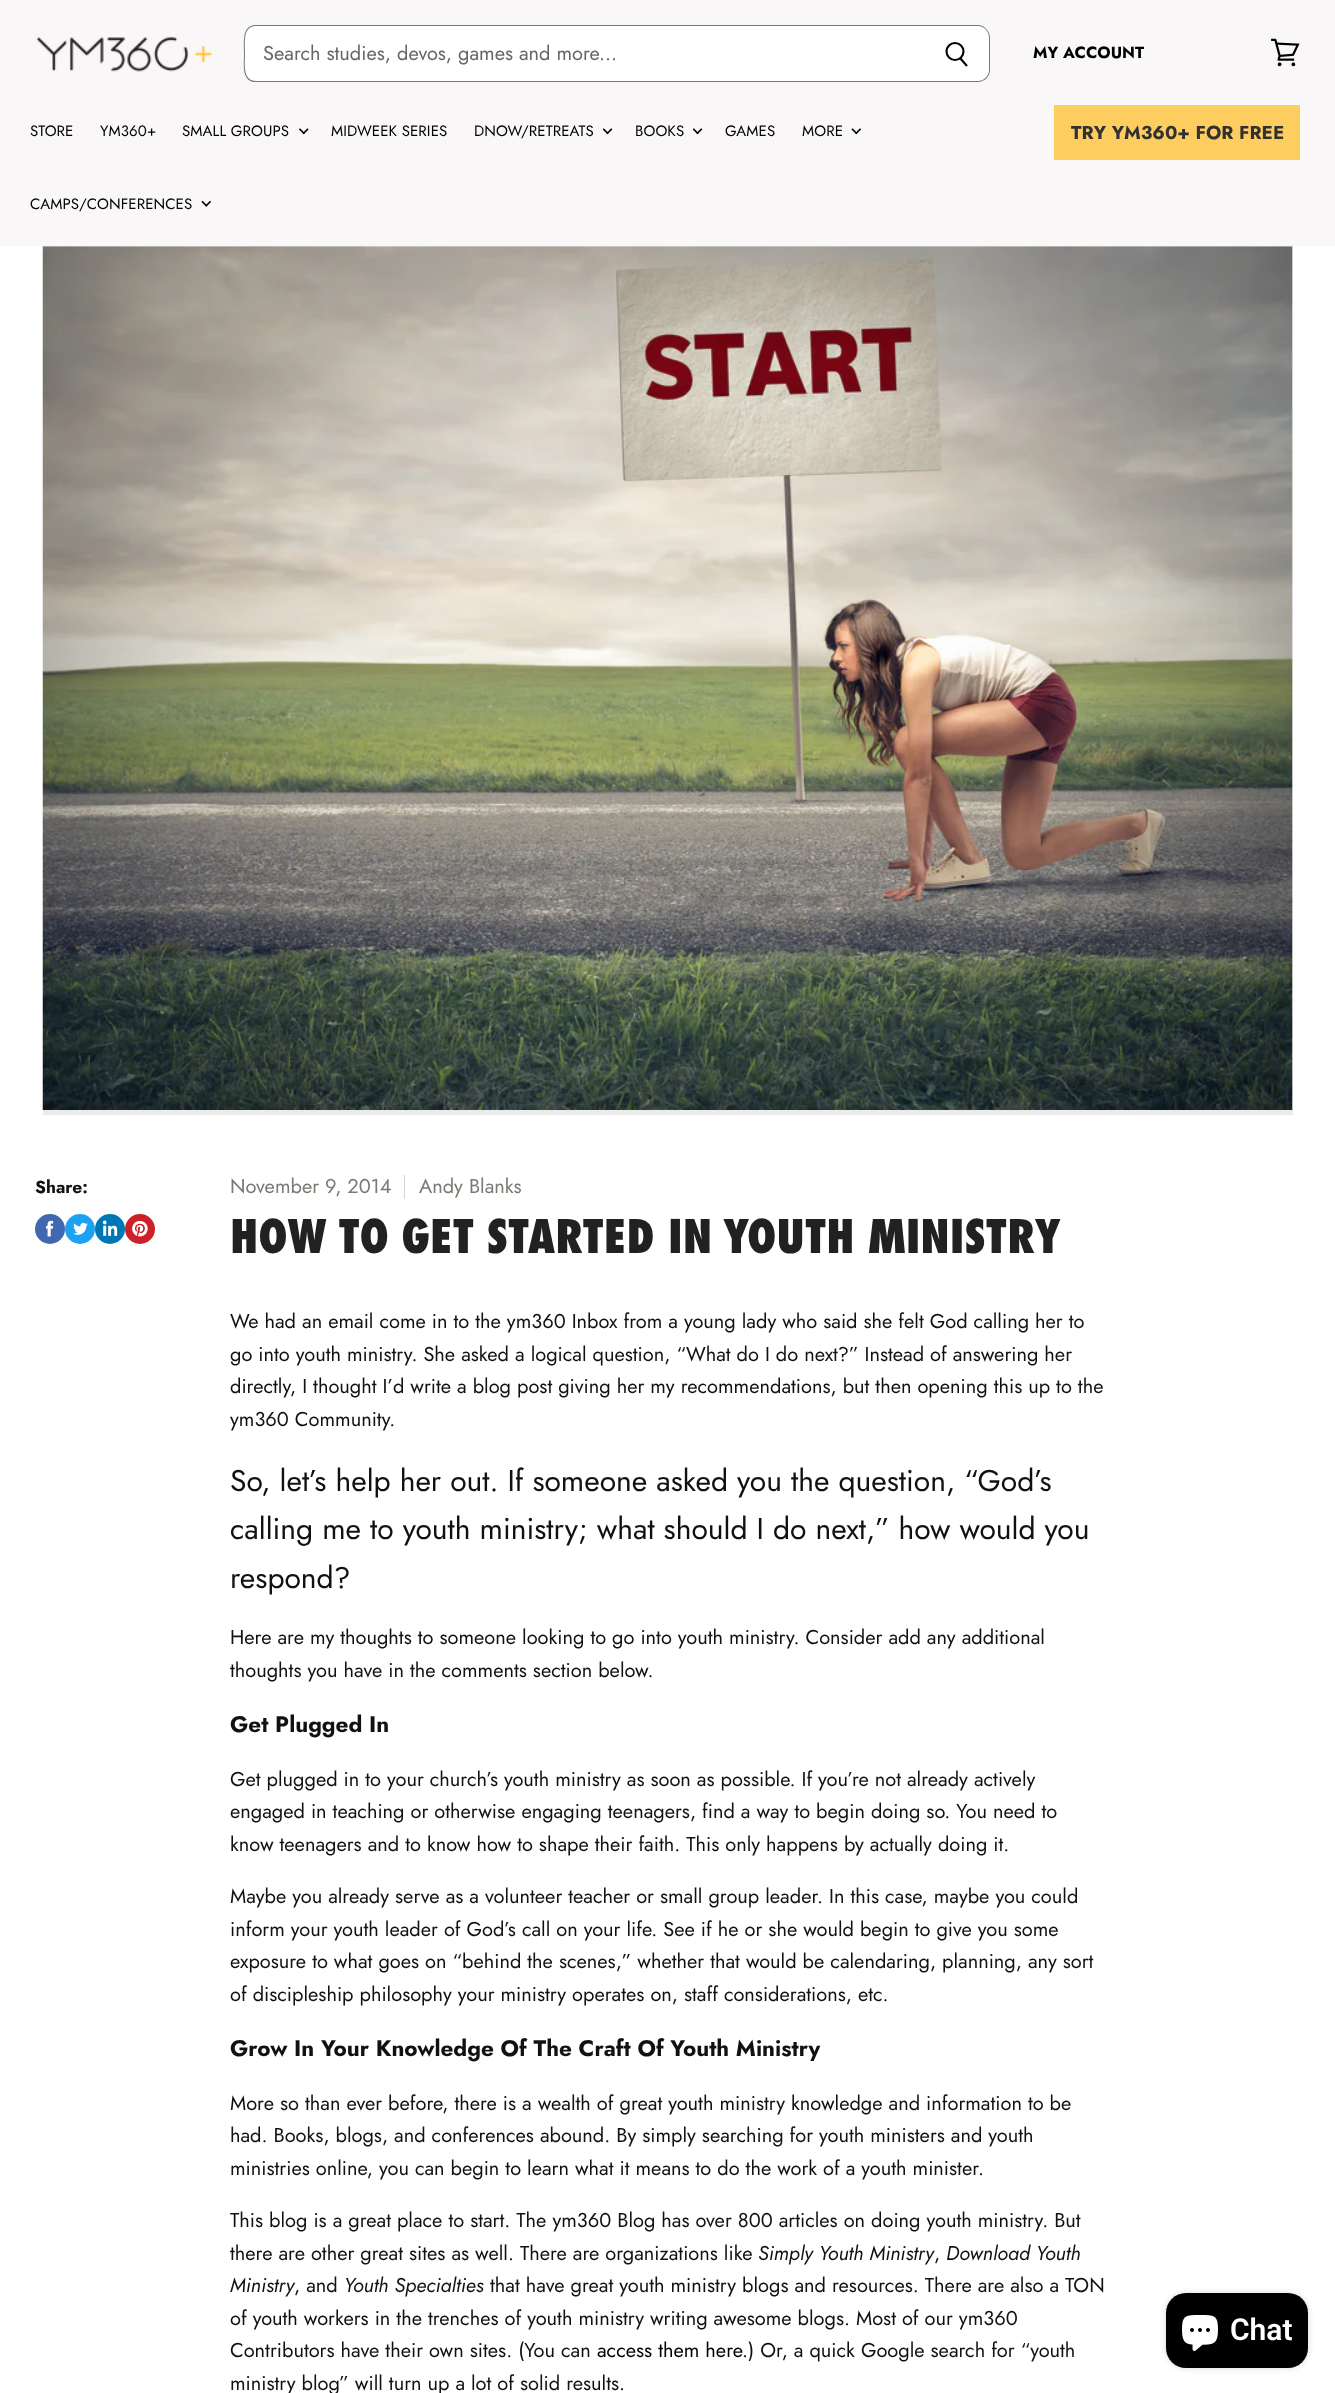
<svg xmlns="http://www.w3.org/2000/svg" width="1335" height="2393" viewBox="0 0 1335 2393">
  <rect width="100%" height="100%" fill="rgb(255,255,255)"/>
  <rect x="0" y="0" width="1335" height="246" fill="rgb(249,247,247)"/>
  <image x="36" y="36" width="176" height="36" href="pic1.png"/>
  <path d="M256 26H924V81H256C250 81 245 76 245 70V37C245 31 250 26 256 26Z" fill="rgb(255,255,255)"/>
  <path d="M256 25H924V82H256C241 82 244 64 244 54C244 44 241 25 256 25ZM256 26H924V81H256C242 81 245 63 245 54C245 45 242 26 256 26Z" fill="rgb(119,119,119)" fill-rule="evenodd"/>
  <text x="263" y="60" font-family="Jost" font-size="20" fill="rgb(102,102,102)">Search studies, devos, games and more...</text>
  <path d="M924 26H978C984 26 989 31 989 37V70C989 76 984 81 978 81H924Z" fill="rgb(255,255,255)"/>
  <path d="M924 25H978C984 25 990 31 990 38V70C990 77 984 82 978 82H924ZM924 26H978C984 26 989 31 989 38V70C989 76 984 81 978 81H924Z" fill="rgb(119,119,119)" fill-rule="evenodd"/>
  <path d="M967 66L960 58" fill="none" stroke="rgb(0,0,0)" stroke-width="2.1"/>
  <circle cx="955" cy="51.5" r="8.5" fill="none" stroke="rgb(0,0,0)" stroke-width="2.1"/>
  <text x="1033" y="58" font-family="Jost" font-size="16.25" font-weight="bold" fill="rgb(0,0,0)">MY ACCOUNT</text>
  <image x="1271" y="38" width="29" height="29" href="pic2.png"/>
  <g font-family="Jost" font-size="15" letter-spacing="0.1" fill="rgb(0,0,0)">
    <text x="30" y="136">STORE</text>
    <text x="100" y="136">YM360+</text>
    <text x="182" y="136">SMALL GROUPS</text>
  </g>
  <image x="299" y="128" width="10" height="7" href="pic3.png"/>
  <g font-family="Jost" font-size="15" letter-spacing="0.1" fill="rgb(0,0,0)">
    <text x="331" y="136">MIDWEEK SERIES</text>
    <text x="474" y="136">DNOW/RETREATS</text>
  </g>
  <image x="603" y="128" width="10" height="7" href="pic4.png"/>
  <text x="635" y="136" font-family="Jost" font-size="15" letter-spacing="0.1" fill="rgb(0,0,0)">BOOKS</text>
  <image x="693" y="128" width="10" height="7" href="pic4.png"/>
  <g font-family="Jost" font-size="15" letter-spacing="0.1" fill="rgb(0,0,0)">
    <text x="725" y="136">GAMES</text>
    <text x="802" y="136">MORE</text>
  </g>
  <image x="851" y="128" width="10" height="7" href="pic5.png"/>
  <text x="30" y="209" font-family="Jost" font-size="15" letter-spacing="0.1" fill="rgb(0,0,0)">CAMPS/CONFERENCES</text>
  <image x="201" y="200" width="10" height="7" href="pic6.png"/>
  <rect x="1054" y="105" width="246" height="55" fill="rgb(254,205,95)"/>
  <text x="1071" y="139" font-family="Jost" font-size="18.75" font-weight="bold" fill="rgb(50,49,49)">TRY YM360+ FOR FREE</text>
  <rect x="43" y="246" width="1250" height="869" fill="rgb(235,235,235)"/>
  <image x="42" y="246" width="1251" height="864" href="pic7.png"/>
  <text x="35" y="1193" font-family="Jost" font-size="17.5" font-weight="bold" fill="rgb(17,17,17)">Share:</text>
  <circle cx="50" cy="1229" r="15" fill="rgb(66,103,177)"/>
  <image x="46" y="1220" width="8" height="17" href="pic8.png"/>
  <circle cx="80" cy="1229" r="15" fill="rgb(29,161,242)"/>
  <image x="73" y="1222" width="15" height="13" href="pic9.png"/>
  <circle cx="110" cy="1229" r="15" fill="rgb(0,119,181)"/>
  <image x="102" y="1220" width="16" height="16" href="pic10.png"/>
  <circle cx="140" cy="1229" r="15" fill="rgb(204,33,41)"/>
  <image x="132" y="1220" width="16" height="17" href="pic11.png"/>
  <text x="230" y="1193" font-family="Jost" font-size="20" fill="rgb(124,120,115)">November 9, 2014</text>
  <rect x="404" y="1175" width="1" height="24" fill="rgb(210,210,210)"/>
  <text x="419" y="1193" font-family="Jost" font-size="20" fill="rgb(124,120,115)">Andy Blanks</text>
  <text x="230" y="1253" font-family="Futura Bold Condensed" font-size="45.25" font-weight="bold" fill="rgb(33,33,33)">HOW TO GET STARTED IN YOUTH MINISTRY</text>
  <g font-family="Jost" font-size="20" fill="rgb(17,17,17)">
    <text>
      <tspan x="230" y="1328">We had an email come in to the ym360 Inbox from a young lady who said she felt God calling her to</tspan>
      <tspan x="230" y="1361">go into youth ministry. She asked a logical question, “What do I do next?” Instead of answering her</tspan>
      <tspan x="230" y="1393">directly, I thought I’d write a blog post giving her my recommendations, but then opening this up to the</tspan>
      <tspan x="230" y="1426">ym360 Community.</tspan>
    </text>
  </g>
  <g font-family="Jost" font-size="30" fill="rgb(17,17,17)">
    <text>
      <tspan x="230" y="1491">So, let’s help her out. If someone asked you the question, “God’s</tspan>
      <tspan x="230" y="1539">calling me to youth ministry; what should I do next,” how would you</tspan>
      <tspan x="230" y="1588">respond?</tspan>
    </text>
  </g>
  <g font-family="Jost" font-size="20" fill="rgb(17,17,17)">
    <text>
      <tspan x="230" y="1644">Here are my thoughts to someone looking to go into youth ministry. Consider add any additional</tspan>
      <tspan x="230" y="1677">thoughts you have in the comments section below.</tspan>
    </text>
  </g>
  <text x="230" y="1732" font-family="Jost" font-size="22.5" font-weight="bold" fill="rgb(17,17,17)">Get Plugged In</text>
  <g font-family="Jost" font-size="20" fill="rgb(17,17,17)">
    <text>
      <tspan x="230" y="1786">Get plugged in to your church’s youth ministry as soon as possible. If you’re not already actively</tspan>
      <tspan x="230" y="1818">engaged in teaching or otherwise engaging teenagers, find a way to begin doing so. You need to</tspan>
      <tspan x="230" y="1851">know teenagers and to know how to shape their faith. This only happens by actually doing it.</tspan>
    </text>
    <text>
      <tspan x="230" y="1903">Maybe you already serve as a volunteer teacher or small group leader. In this case, maybe you could</tspan>
      <tspan x="230" y="1936">inform your youth leader of God’s call on your life. See if he or she would begin to give you some</tspan>
      <tspan x="230" y="1968">exposure to what goes on “behind the scenes,” whether that would be calendaring, planning, any sort</tspan>
      <tspan x="230" y="2001">of discipleship philosophy your ministry operates on, staff considerations, etc.</tspan>
    </text>
  </g>
  <text x="230" y="2056" font-family="Jost" font-size="22.5" font-weight="bold" fill="rgb(17,17,17)">Grow In Your Knowledge Of The Craft Of Youth Ministry</text>
  <g font-family="Jost" font-size="20" fill="rgb(17,17,17)">
    <text>
      <tspan x="230" y="2110">More so than ever before, there is a wealth of great youth ministry knowledge and information to be</tspan>
      <tspan x="230" y="2142">had. Books, blogs, and conferences abound. By simply searching for youth ministers and youth</tspan>
      <tspan x="230" y="2175">ministries online, you can begin to learn what it means to do the work of a youth minister.</tspan>
    </text>
    <text>
      <tspan x="230" y="2227">This blog is a great place to start. The ym360 Blog has over 800 articles on doing youth ministry. But</tspan>
      <tspan x="230" y="2260">there are other great sites as well. There are organizations like</tspan>
    </text>
  </g>
  <text x="758" y="2260" font-family="Jost" font-size="20" font-style="italic" fill="rgb(17,17,17)">Simply Youth Ministry</text>
  <text x="934" y="2260" font-family="Jost" font-size="20" fill="rgb(17,17,17)">,</text>
  <g font-family="Jost" font-size="20" font-style="italic" fill="rgb(17,17,17)">
    <text x="946" y="2260">Download Youth</text>
    <text x="230" y="2292">Ministry</text>
  </g>
  <text x="294" y="2292" font-family="Jost" font-size="20" fill="rgb(17,17,17)">, and</text>
  <text x="344" y="2292" font-family="Jost" font-size="20" font-style="italic" fill="rgb(17,17,17)">Youth Specialties</text>
  <g font-family="Jost" font-size="20" fill="rgb(17,17,17)">
    <text x="490" y="2292">that have great youth ministry blogs and resources. There are also a TON</text>
    <text>
      <tspan x="230" y="2325">of youth workers in the trenches of youth ministry writing awesome blogs. Most of our ym360</tspan>
      <tspan x="230" y="2357">Contributors have their own sites. (You can</tspan>
    </text>
  </g>
  <text x="597" y="2357" font-family="Jost" font-size="20" fill="rgb(0,0,0)">access them here</text>
  <g font-family="Jost" font-size="20" fill="rgb(17,17,17)">
    <text x="742" y="2357">.) Or, a quick Google search for “youth</text>
    <text x="230" y="2390">ministry blog” will turn up a lot of solid results.</text>
  </g>
  <rect x="1166" y="2293" width="142" height="75" rx="20" fill="rgba(0,0,0,0.15)" filter="blur(3px)"/>
  <rect x="1166" y="2293" width="142" height="75" rx="20" fill="rgb(0,0,0)"/>
  <image x="1182" y="2315" width="36" height="36" href="pic12.png"/>
  <text x="1230" y="2340" font-family="Roboto" font-size="30" font-weight="600" fill="rgb(255,255,255)">Chat</text>
</svg>
